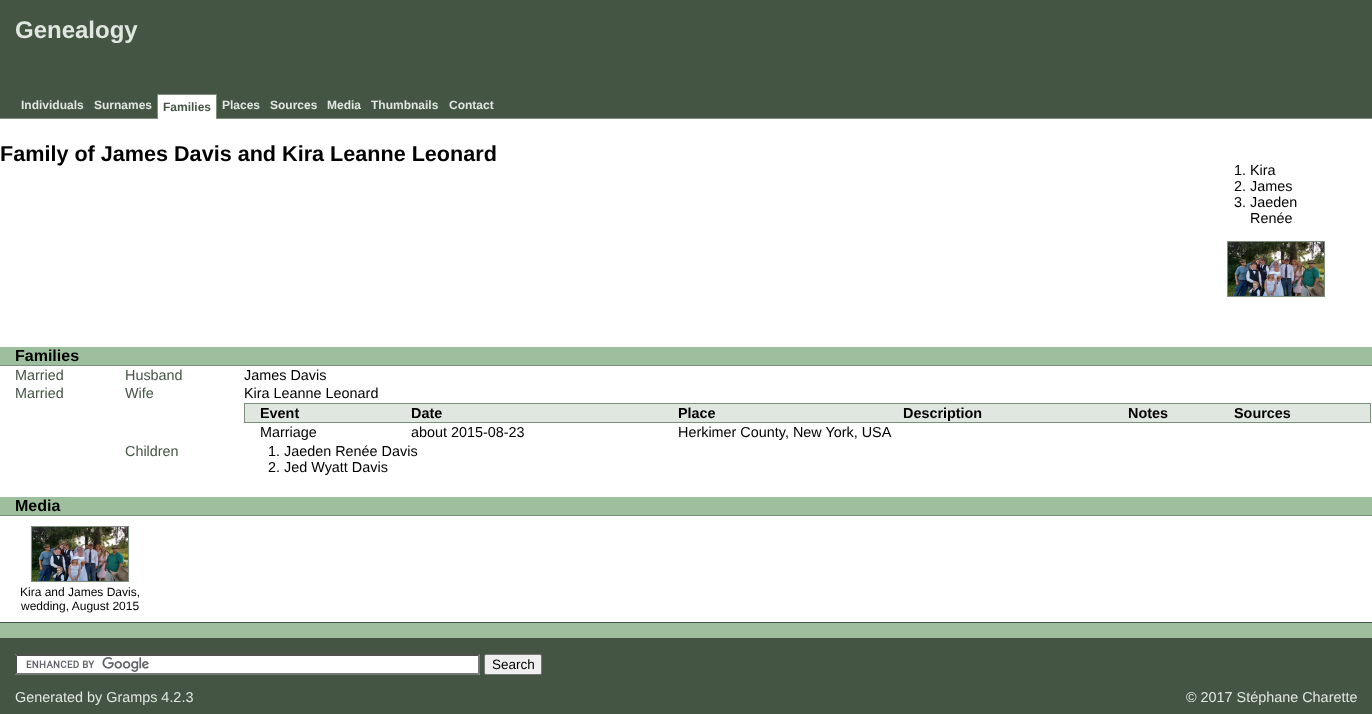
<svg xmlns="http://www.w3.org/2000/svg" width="1372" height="714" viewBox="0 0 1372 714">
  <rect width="100%" height="100%" fill="rgb(68,85,68)"/>
  <text x="15" y="38" font-family="Liberation Sans" font-size="24" font-weight="bold" fill="rgb(224,230,224)">Genealogy</text>
  <g font-family="Liberation Sans" font-size="12" font-weight="bold" fill="rgb(224,230,224)">
    <text x="21" y="109">Individuals</text>
    <text x="94" y="109">Surnames</text>
  </g>
  <rect x="0" y="118" width="1372" height="1" fill="rgb(124,143,124)"/>
  <rect x="158" y="95" width="58" height="24" fill="rgb(255,255,255)"/>
  <rect x="157" y="94" width="60" height="1" fill="rgb(124,143,124)"/>
  <rect x="216" y="94" width="1" height="25" fill="rgb(124,143,124)"/>
  <rect x="157" y="94" width="1" height="25" fill="rgb(124,143,124)"/>
  <text x="163" y="111" font-family="Liberation Sans" font-size="12" font-weight="bold" fill="rgb(68,85,68)">Families</text>
  <g font-family="Liberation Sans" font-size="12" font-weight="bold" fill="rgb(224,230,224)">
    <text x="222" y="109">Places</text>
    <text x="270" y="109">Sources</text>
    <text x="327" y="109">Media</text>
    <text x="371" y="109">Thumbnails</text>
    <text x="449" y="109">Contact</text>
  </g>
  <rect x="0" y="119" width="1372" height="503" fill="rgb(255,255,255)"/>
  <text x="0" y="161" font-family="Liberation Sans" font-size="21.6" font-weight="bold" fill="rgb(0,0,0)">Family of James Davis and Kira Leanne Leonard</text>
  <g font-family="Liberation Sans" font-size="14.4" fill="rgb(0,0,0)">
    <text>
      <tspan x="1234" y="175">1. Kira</tspan>
      <tspan x="1234" y="191">2. James</tspan>
      <tspan x="1234" y="207">3. Jaeden</tspan>
    </text>
    <text x="1250" y="223">Renée</text>
  </g>
  <rect x="1227.5" y="241.5" width="97" height="55" fill="none" stroke="rgb(124,143,124)"/>
  <image x="1228" y="242" width="96" height="54" href="pic1.png"/>
  <rect x="0" y="347" width="1372" height="18" fill="rgb(157,191,157)"/>
  <rect x="0" y="365" width="1372" height="1" fill="rgb(124,143,124)"/>
  <text x="15" y="361" font-family="Liberation Sans" font-size="16" font-weight="bold" fill="rgb(0,0,0)">Families</text>
  <g font-family="Liberation Sans" font-size="14.4" fill="rgb(68,85,68)">
    <text x="15" y="380">Married</text>
    <text x="125" y="380">Husband</text>
  </g>
  <text x="244" y="380" font-family="Liberation Sans" font-size="14.4" fill="rgb(0,0,0)">James Davis</text>
  <g font-family="Liberation Sans" font-size="14.4" fill="rgb(68,85,68)">
    <text x="15" y="398">Married</text>
    <text x="125" y="398">Wife</text>
  </g>
  <text x="244" y="398" font-family="Liberation Sans" font-size="14.4" fill="rgb(0,0,0)">Kira Leanne Leonard</text>
  <rect x="245" y="404" width="1125" height="18" fill="rgb(224,230,224)"/>
  <rect x="244" y="403" width="1127" height="1" fill="rgb(124,143,124)"/>
  <rect x="1370" y="403" width="1" height="20" fill="rgb(124,143,124)"/>
  <rect x="244" y="422" width="1127" height="1" fill="rgb(124,143,124)"/>
  <rect x="244" y="403" width="1" height="20" fill="rgb(124,143,124)"/>
  <g font-family="Liberation Sans" font-size="14.4" font-weight="bold" fill="rgb(0,0,0)">
    <text x="260" y="418">Event</text>
    <text x="411" y="418">Date</text>
    <text x="678" y="418">Place</text>
    <text x="903" y="418">Description</text>
    <text x="1128" y="418">Notes</text>
    <text x="1234" y="418">Sources</text>
  </g>
  <g font-family="Liberation Sans" font-size="14.4" fill="rgb(0,0,0)">
    <text x="260" y="437">Marriage</text>
    <text x="411" y="437">about 2015-08-23</text>
    <text x="678" y="437">Herkimer County, New York, USA</text>
  </g>
  <text x="125" y="456" font-family="Liberation Sans" font-size="14.4" fill="rgb(68,85,68)">Children</text>
  <g font-family="Liberation Sans" font-size="14.4" fill="rgb(0,0,0)">
    <text>
      <tspan x="268" y="456">1. Jaeden Renée Davis</tspan>
      <tspan x="268" y="472">2. Jed Wyatt Davis</tspan>
    </text>
  </g>
  <rect x="0" y="497" width="1372" height="18" fill="rgb(157,191,157)"/>
  <rect x="0" y="515" width="1372" height="1" fill="rgb(124,143,124)"/>
  <text x="15" y="511" font-family="Liberation Sans" font-size="16" font-weight="bold" fill="rgb(0,0,0)">Media</text>
  <rect x="31.5" y="526.5" width="97" height="55" fill="none" stroke="rgb(124,143,124)"/>
  <image x="32" y="527" width="96" height="54" href="pic1.png"/>
  <g font-family="Liberation Sans" font-size="12" fill="rgb(0,0,0)">
    <text x="20" y="596">Kira and James Davis,</text>
    <text x="21" y="610">wedding, August 2015</text>
  </g>
  <rect x="0" y="623" width="1372" height="15" fill="rgb(157,191,157)"/>
  <rect x="15" y="654" width="465" height="21" fill="rgb(255,255,255)"/>
  <image x="26" y="657" width="123" height="15" href="pic2.png"/>
  <path d="M15 654H480L478 656H17Z" fill="rgb(79,79,79)"/>
  <path d="M480 654V675L478 673V656Z" fill="rgb(118,118,118)"/>
  <path d="M480 675H15L17 673H478Z" fill="rgb(118,118,118)"/>
  <path d="M15 675V654L17 656V673Z" fill="rgb(79,79,79)"/>
  <rect x="484.5" y="654.5" width="57" height="20" rx="1.5" fill="rgb(239,239,239)" stroke="rgb(118,118,118)"/>
  <text x="492" y="669" font-family="Liberation Sans" font-size="13.5" fill="rgb(0,0,0)">Search</text>
  <g font-family="Liberation Sans" font-size="14.4" fill="rgb(224,230,224)">
    <text x="15" y="702">Generated by Gramps 4.2.3</text>
    <text x="1186" y="702">© 2017 Stéphane Charette</text>
  </g>
</svg>
